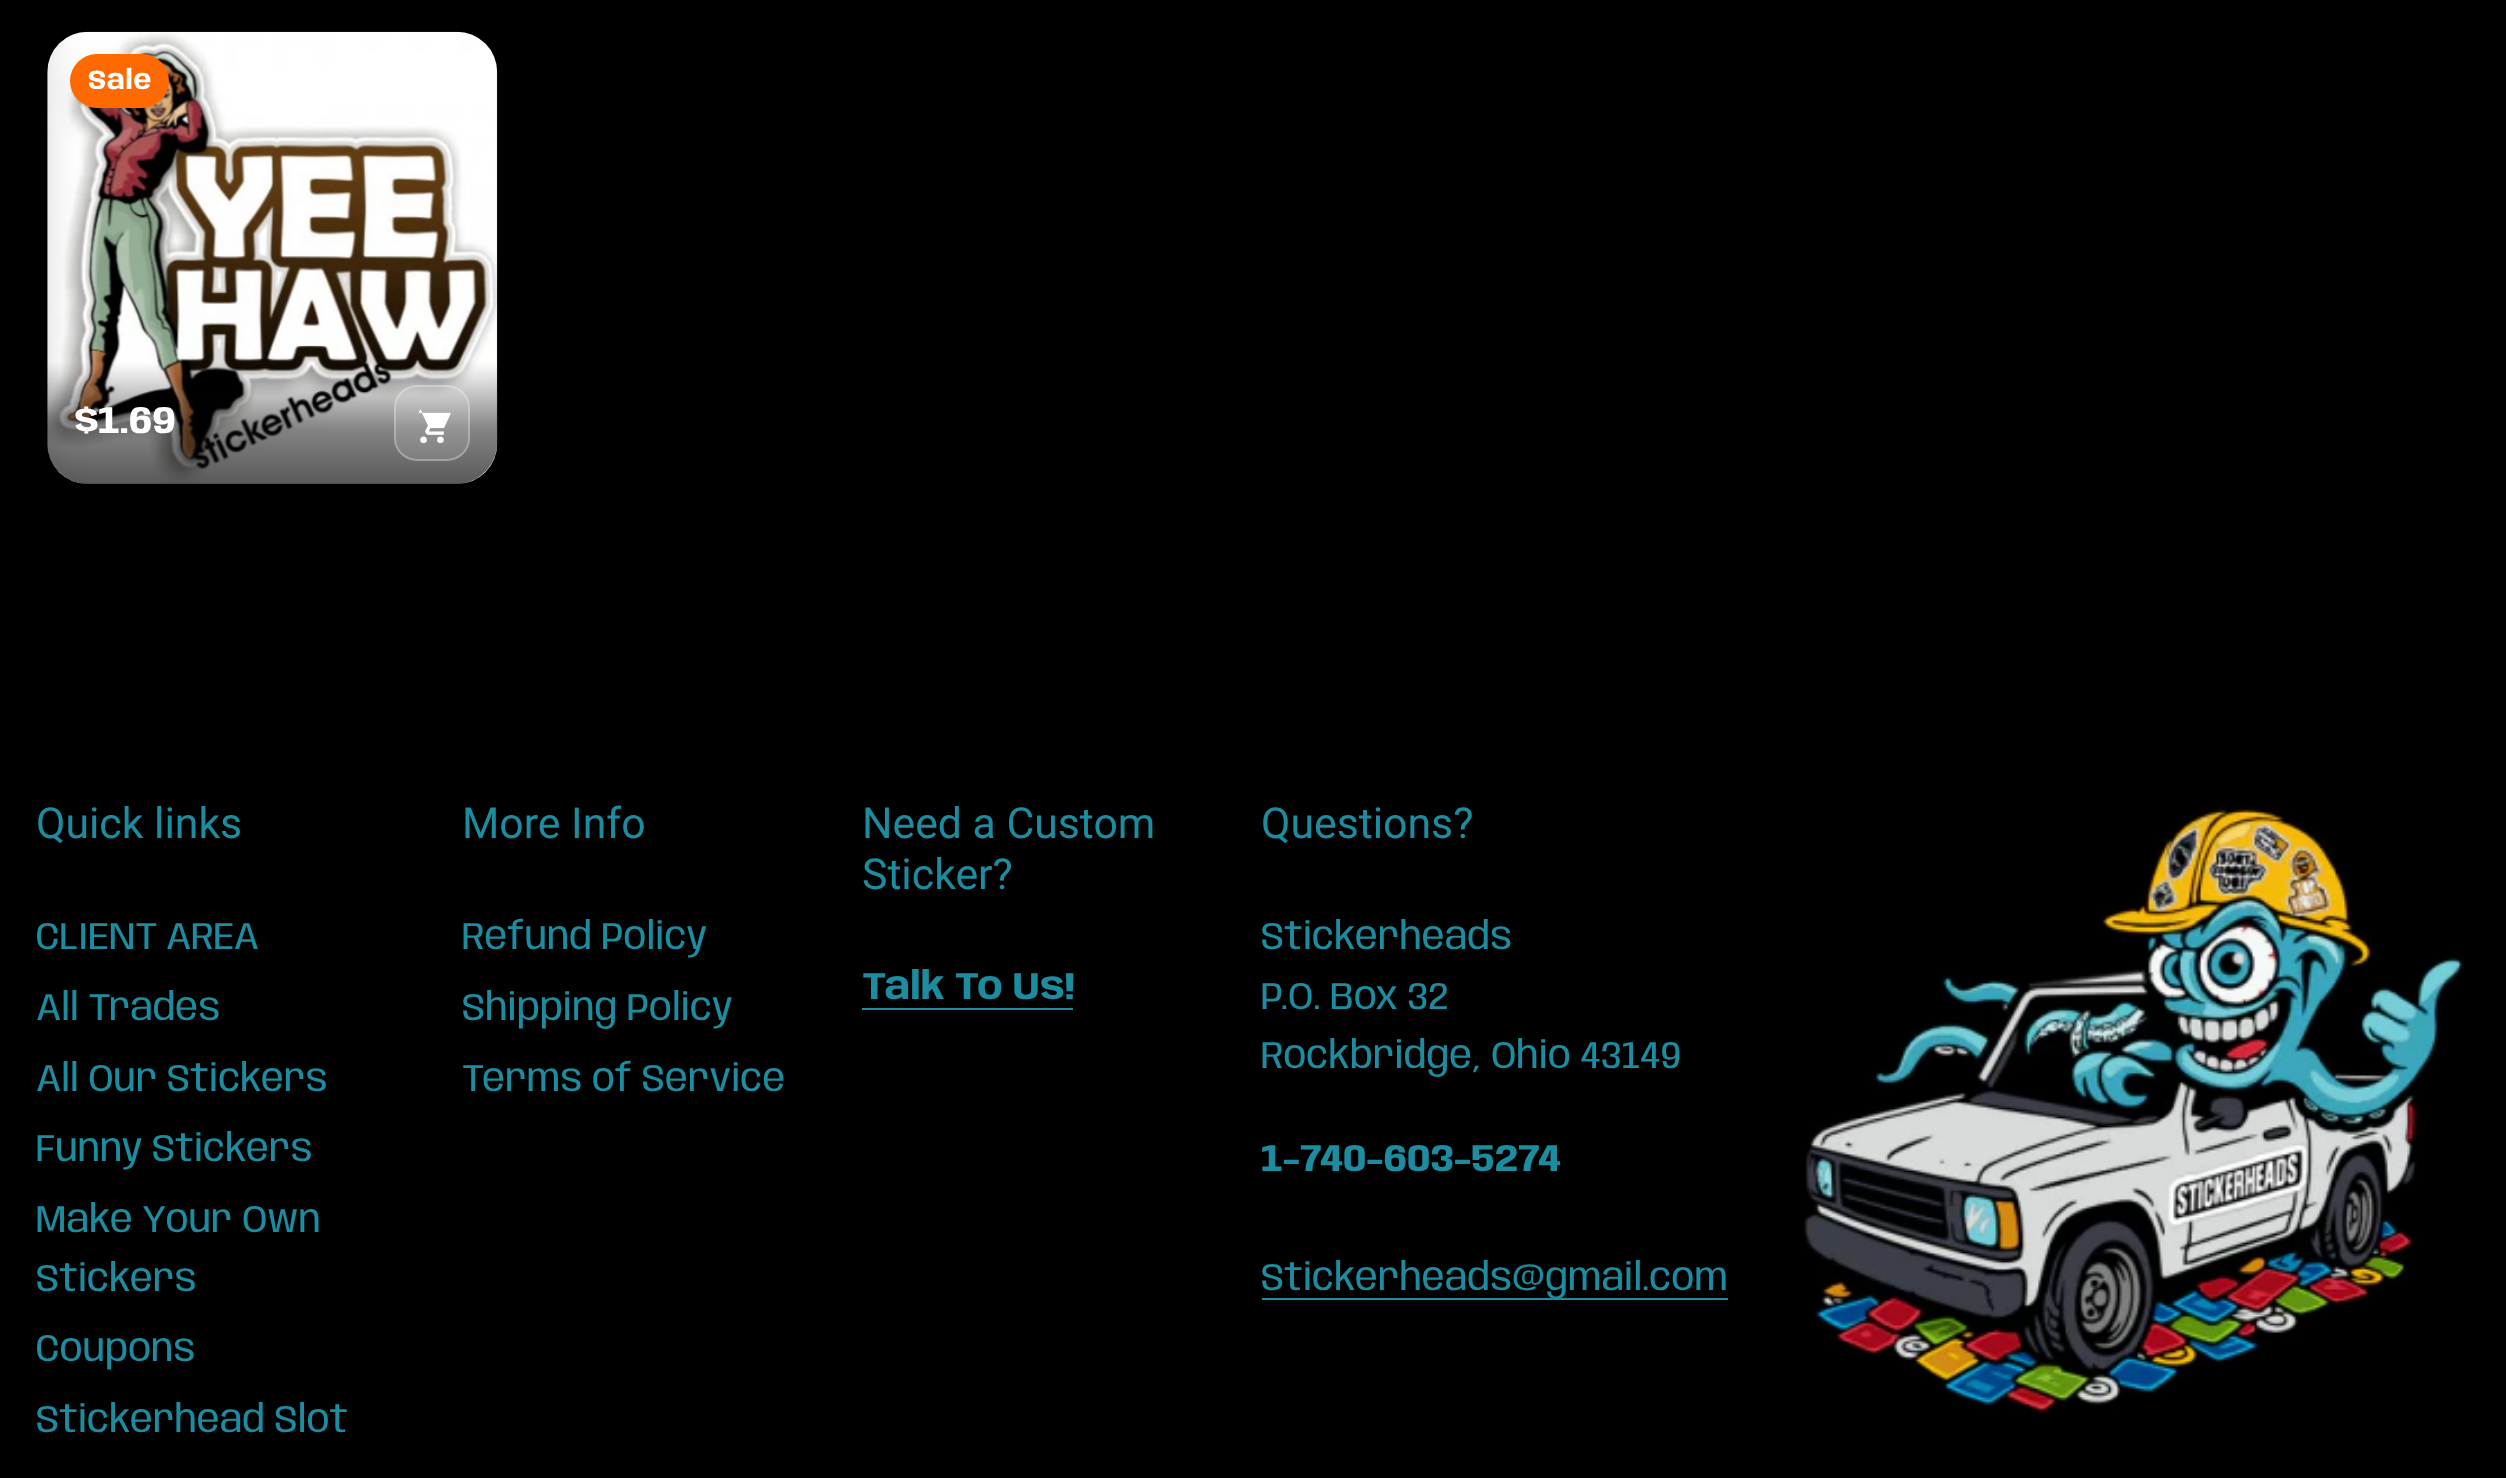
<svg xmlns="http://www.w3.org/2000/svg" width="2506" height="1478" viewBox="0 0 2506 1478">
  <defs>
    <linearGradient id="g1" gradientUnits="userSpaceOnUse" x1="272" y1="362" x2="272" y2="484"><stop offset="0" stop-color="rgb(0,0,0)" stop-opacity="0"/><stop offset="0.55" stop-color="rgb(0,0,0)" stop-opacity="0.48"/><stop offset="1" stop-color="rgb(0,0,0)" stop-opacity="0.65"/></linearGradient>
  </defs>
  <rect width="100%" height="100%" fill="rgb(0,0,0)"/>
  <image x="47" y="31" width="451" height="453" href="pic1.png"/>
  <rect x="70" y="68" width="99" height="54" rx="27" fill="rgba(0,0,0,0.06)" filter="blur(16px)"/>
  <path d="M70 85C71 99 83 110 97 110H142C157 110 169 98 169 83V79V81C169 96 157 108 142 108H97C83 108 72 98 70 85Z" fill="rgba(0,0,0,0.1)"/>
  <rect x="70" y="54" width="99" height="54" rx="27" fill="rgb(255,106,0)"/>
  <path d="M47 362H497V443C497 465.5 478.5 484 456 484H88C65.5 484 47 465.5 47 443Z" fill="url(#g1)"/>
  <rect x="-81" y="0" width="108" height="1478" fill="rgba(0,0,0,0.35)" filter="blur(27px)"/>
  <text x="88" y="89" font-family="Anybody" font-size="27" font-weight="bold" letter-spacing="0.5" fill="rgb(255,255,255)">Sale</text>
  <text x="74" y="433" font-family="Anybody" font-size="38.25" font-weight="bold" fill="rgb(255,255,255)">$1.69</text>
  <rect x="394" y="385" width="76" height="76" rx="23" fill="rgba(255,255,255,0.12)"/>
  <rect x="395" y="386" width="74" height="74" rx="22" fill="none" stroke="rgba(255,255,255,0.28)" stroke-width="2"/>
  <image x="418" y="409" width="33" height="34" href="pic2.png"/>
  <text x="36" y="838" font-family="Roboto" font-size="42.75" fill="rgb(28,141,161)">Quick links</text>
  <g font-family="Anybody" font-size="38.25" fill="rgb(28,141,161)">
    <text>
      <tspan x="36" y="949">CLIENT AREA</tspan>
      <tspan x="36" y="1020">All Trades</tspan>
      <tspan x="36" y="1091">All Our Stickers</tspan>
      <tspan x="36" y="1161">Funny Stickers</tspan>
      <tspan x="36" y="1232">Make Your Own</tspan>
      <tspan x="36" y="1291">Stickers</tspan>
      <tspan x="36" y="1361">Coupons</tspan>
      <tspan x="36" y="1432">Stickerhead Slot</tspan>
    </text>
  </g>
  <text x="462" y="838" font-family="Roboto" font-size="42.75" fill="rgb(28,141,161)">More Info</text>
  <g font-family="Anybody" font-size="38.25" fill="rgb(28,141,161)">
    <text>
      <tspan x="462" y="949">Refund Policy</tspan>
      <tspan x="462" y="1020">Shipping Policy</tspan>
      <tspan x="462" y="1091">Terms of Service</tspan>
    </text>
  </g>
  <g font-family="Roboto" font-size="42.75" fill="rgb(28,141,161)">
    <text>
      <tspan x="862" y="838">Need a Custom</tspan>
      <tspan x="862" y="889">Sticker?</tspan>
    </text>
  </g>
  <text x="862" y="999" font-family="Anybody" font-size="38.25" font-weight="bold" fill="rgb(28,141,161)">Talk To Us!</text>
  <rect x="862" y="1008" width="211" height="2" fill="rgb(28,141,161)"/>
  <text x="1261" y="838" font-family="Roboto" font-size="42.75" fill="rgb(28,141,161)">Questions?</text>
  <g font-family="Anybody" font-size="38.25" fill="rgb(28,141,161)">
    <text>
      <tspan x="1261" y="949">Stickerheads</tspan>
      <tspan x="1261" y="1009">P.O. Box 32</tspan>
      <tspan x="1261" y="1068">Rockbridge, Ohio 43149</tspan>
    </text>
  </g>
  <text x="1261" y="1171" font-family="Anybody" font-size="38.25" font-weight="bold" fill="rgb(28,141,161)">1-740-603-5274</text>
  <rect x="1262" y="1298" width="466" height="2" fill="rgb(28,141,161)"/>
  <text x="1261" y="1290" font-family="Anybody" font-size="38.25" fill="rgb(28,141,161)">Stickerheads@gmail.com</text>
  <image x="1804" y="802" width="660" height="612" href="pic3.png"/>
</svg>
